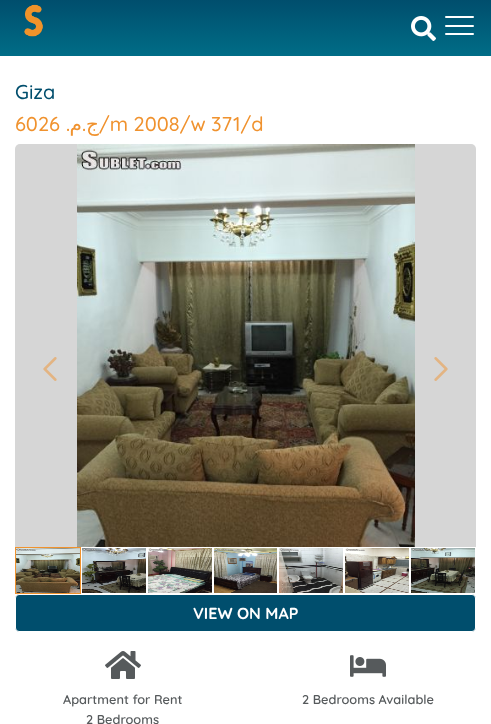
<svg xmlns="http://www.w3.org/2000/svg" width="491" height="724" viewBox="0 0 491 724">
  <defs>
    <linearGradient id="g1" gradientUnits="userSpaceOnUse" x1="0" y1="0" x2="0" y2="56"><stop offset="0" stop-color="rgb(0,78,109)"/><stop offset="1" stop-color="rgb(0,109,135)"/></linearGradient>
  </defs>
  <rect width="100%" height="100%" fill="rgb(255,255,255)"/>
  <rect x="0" y="0" width="491" height="56" fill="url(#g1)"/>
  <image x="24" y="4" width="19" height="33" href="pic1.png"/>
  <image x="411" y="16" width="25" height="25" href="pic2.png"/>
  <rect x="445" y="16" width="29" height="2" rx="1" fill="rgb(255,255,255)"/>
  <rect x="445" y="25" width="29" height="2" rx="1" fill="rgb(255,255,255)"/>
  <rect x="445" y="33" width="29" height="2" rx="1" fill="rgb(255,255,255)"/>
  <text x="15" y="99" font-family="Quicksand" font-size="20" font-weight="500" fill="rgb(0,78,109)">Giza</text>
  <text x="15" y="131" font-family="Quicksand" font-size="20" font-weight="500" fill="rgb(240,146,46)">6026</text>
  <text x="70" y="131" font-family="Quicksand" font-size="20" font-weight="500" direction="rtl" fill="rgb(240,146,46)">.</text>
  <text x="82" y="131" font-family="DejaVu Sans" font-size="20" direction="rtl" fill="rgb(240,146,46)">م</text>
  <text x="86" y="131" font-family="Quicksand" font-size="20" font-weight="500" direction="rtl" fill="rgb(240,146,46)">.</text>
  <text x="99" y="131" font-family="DejaVu Sans" font-size="20" direction="rtl" fill="rgb(240,146,46)">ج</text>
  <text x="99" y="131" font-family="Quicksand" font-size="20" font-weight="500" fill="rgb(240,146,46)">/m 2008/w 371/d</text>
  <rect x="15" y="144" width="461" height="450" rx="5" fill="rgb(214,214,214)"/>
  <image x="77" y="144" width="338" height="403" href="pic3.png"/>
  <image x="43" y="357" width="14" height="24" href="pic4.png"/>
  <image x="434" y="357" width="14" height="24" href="pic5.png"/>
  <rect x="15" y="547" width="66" height="47" fill="rgb(240,146,46)"/>
  <image x="16" y="548" width="64" height="45" href="pic6.png"/>
  <rect x="81.5" y="547.5" width="65" height="46" fill="none" stroke="rgb(255,255,255)"/>
  <image x="82" y="548" width="64" height="45" href="pic7.png"/>
  <rect x="147.5" y="547.5" width="65" height="46" fill="none" stroke="rgb(255,255,255)"/>
  <image x="148" y="548" width="64" height="45" href="pic8.png"/>
  <rect x="213.5" y="547.5" width="64" height="46" fill="none" stroke="rgb(255,255,255)"/>
  <image x="214" y="548" width="63" height="45" href="pic9.png"/>
  <rect x="278.5" y="547.5" width="65" height="46" fill="none" stroke="rgb(255,255,255)"/>
  <image x="279" y="548" width="64" height="45" href="pic10.png"/>
  <rect x="344.5" y="547.5" width="65" height="46" fill="none" stroke="rgb(255,255,255)"/>
  <image x="345" y="548" width="64" height="45" href="pic11.png"/>
  <rect x="410.5" y="547.5" width="65" height="46" fill="none" stroke="rgb(255,255,255)"/>
  <image x="411" y="548" width="64" height="45" href="pic12.png"/>
  <rect x="15.5" y="594.5" width="460" height="37" rx="3.5" fill="rgb(0,78,109)" stroke="rgb(255,255,255)"/>
  <text x="193" y="619" font-family="Quicksand" font-size="16" font-weight="bold" fill="rgb(255,255,255)">VIEW ON MAP</text>
  <image x="105" y="651" width="36" height="28" href="pic13.png"/>
  <g font-family="Quicksand" font-size="12.75" font-weight="600" fill="rgb(86,90,92)">
    <text x="63" y="704">Apartment for Rent</text>
    <text x="86" y="724">2 Bedrooms</text>
  </g>
  <image x="350" y="655" width="36" height="22" href="pic14.png"/>
  <text x="302" y="704" font-family="Quicksand" font-size="12.75" font-weight="600" fill="rgb(86,90,92)">2 Bedrooms Available</text>
</svg>
